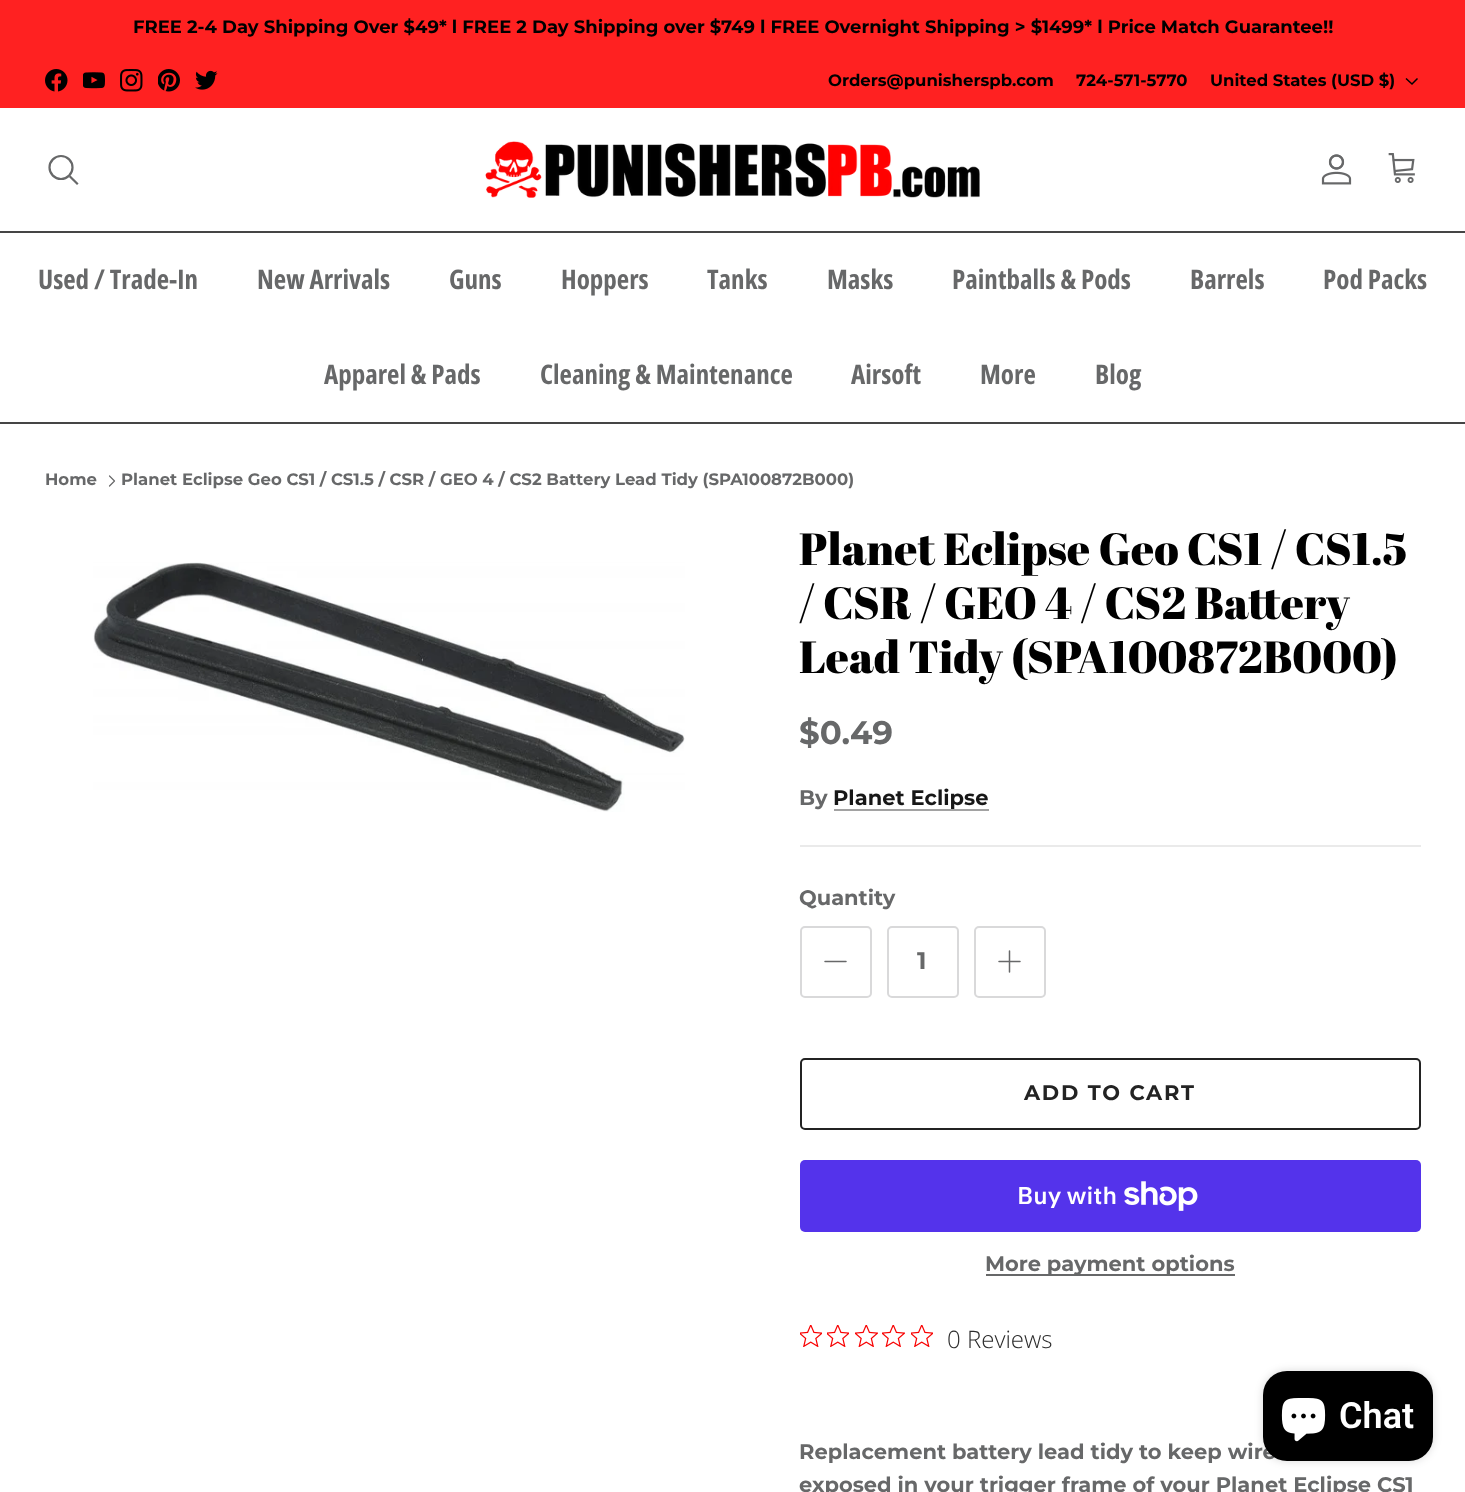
<svg xmlns="http://www.w3.org/2000/svg" width="1465" height="1492" viewBox="0 0 1465 1492">
  <rect width="100%" height="100%" fill="rgb(255,255,255)"/>
  <rect x="0" y="0" width="1465" height="108" fill="rgb(255,33,33)"/>
  <text x="133" y="33" font-family="Montserrat" font-size="18" font-weight="bold" fill="rgb(0,0,0)">FREE 2-4 Day Shipping Over $49* l FREE 2 Day Shipping over $749 l FREE Overnight Shipping &gt; $1499* l Price Match Guarantee!!</text>
  <image x="45" y="69" width="23" height="23" href="pic1.png"/>
  <image x="83" y="72" width="22" height="17" href="pic2.png"/>
  <image x="120" y="69" width="23" height="23" href="pic3.png"/>
  <image x="158" y="69" width="22" height="23" href="pic4.png"/>
  <image x="195" y="70" width="23" height="20" href="pic5.png"/>
  <g font-family="Montserrat" font-size="16.5" font-weight="bold" fill="rgb(0,0,0)">
    <text x="828" y="86">Orders@punisherspb.com</text>
    <text x="1076" y="86">724-571-5770</text>
    <text x="1210" y="86">United States (USD $)</text>
  </g>
  <path d="M1417.5 78.5L1412 84L1406 78.5" fill="none" stroke="rgb(0,0,0)" stroke-width="1.5"/>
  <rect x="0" y="231" width="1465" height="2" fill="rgb(69,69,69)"/>
  <circle cx="61" cy="167.5" r="11.5" fill="none" stroke="rgb(103,104,105)" stroke-width="2.2"/>
  <path d="M70.5 177L77 183.5" fill="none" stroke="rgb(103,104,105)" stroke-width="2.2" stroke-linecap="square"/>
  <image x="485" y="141" width="495" height="57" href="pic6.png"/>
  <image x="1321" y="154" width="31" height="31" href="pic7.png"/>
  <image x="1388" y="153" width="27" height="30" href="pic8.png"/>
  <rect x="0" y="422" width="1465" height="2" fill="rgb(69,69,69)"/>
  <g font-family="Open Sans Condensed" font-size="27" font-weight="bold" fill="rgb(103,104,105)">
    <text x="38" y="289">Used / Trade-In</text>
    <text x="257" y="289">New Arrivals</text>
    <text x="449" y="289">Guns</text>
    <text x="561" y="289">Hoppers</text>
    <text x="707" y="289">Tanks</text>
    <text x="827" y="289">Masks</text>
    <text x="952" y="289">Paintballs &amp; Pods</text>
    <text x="1190" y="289">Barrels</text>
    <text x="1323" y="289">Pod Packs</text>
    <text x="324" y="384">Apparel &amp; Pads</text>
    <text x="540" y="384">Cleaning &amp; Maintenance</text>
    <text x="851" y="384">Airsoft</text>
    <text x="980" y="384">More</text>
    <text x="1095" y="384">Blog</text>
  </g>
  <text x="45" y="485" font-family="Montserrat" font-size="16.5" font-weight="bold" fill="rgb(103,104,105)">Home</text>
  <path d="M109.5 486L114.5 481L109.5 476" fill="none" stroke="rgb(103,104,105)" stroke-width="1.2" stroke-linecap="round" stroke-linejoin="round"/>
  <text x="121" y="485" font-family="Montserrat" font-size="16.5" font-weight="bold" fill="rgb(103,104,105)">Planet Eclipse Geo CS1 / CS1.5 / CSR / GEO 4 / CS2 Battery Lead Tidy (SPA100872B000)</text>
  <image x="93" y="562" width="592" height="250" href="pic9.png"/>
  <g font-family="Abril Fatface" font-size="45" fill="rgb(0,0,0)">
    <text>
      <tspan x="799" y="565">Planet Eclipse Geo CS1 / CS1.5</tspan>
      <tspan x="799" y="619">/ CSR / GEO 4 / CS2 Battery</tspan>
      <tspan x="799" y="673">Lead Tidy (SPA100872B000)</tspan>
    </text>
  </g>
  <text x="799" y="744" font-family="Montserrat" font-size="32.5" font-weight="bold" fill="rgb(103,104,105)">$0.49</text>
  <text x="799" y="805" font-family="Montserrat" font-size="21" font-weight="bold" fill="rgb(103,104,105)">By</text>
  <rect x="834" y="809" width="155" height="2" fill="rgb(162,162,162)"/>
  <text x="833" y="805" font-family="Montserrat" font-size="21" font-weight="bold" fill="rgb(23,23,23)">Planet Eclipse</text>
  <rect x="800" y="845" width="621" height="2" fill="rgb(234,234,234)"/>
  <text x="799" y="905" font-family="Montserrat" font-size="21" font-weight="bold" fill="rgb(103,104,105)">Quantity</text>
  <rect x="801" y="927" width="70" height="70" rx="4" fill="none" stroke="rgb(217,217,218)" stroke-width="2"/>
  <path d="M825 961.5H846" fill="none" stroke="rgb(103,104,105)" stroke-width="1.5" stroke-linecap="round" stroke-linejoin="round"/>
  <rect x="888" y="927" width="70" height="70" rx="4" fill="none" stroke="rgb(217,217,218)" stroke-width="2"/>
  <text x="917" y="969" font-family="Montserrat" font-size="24" font-weight="bold" fill="rgb(103,104,105)">1</text>
  <rect x="975" y="927" width="70" height="70" rx="4" fill="none" stroke="rgb(217,217,218)" stroke-width="2"/>
  <path d="M1009.5 951V972M999 961.5H1020" fill="none" stroke="rgb(103,104,105)" stroke-width="1.5" stroke-linecap="round" stroke-linejoin="round"/>
  <rect x="801" y="1059" width="619" height="70" rx="4" fill="none" stroke="rgb(35,35,35)" stroke-width="2"/>
  <text x="1024" y="1100" font-family="Montserrat" font-size="21" font-weight="bold" letter-spacing="1.75" fill="rgb(35,35,35)">ADD TO CART</text>
  <rect x="800" y="1160" width="621" height="72" rx="5" fill="rgb(84,51,235)"/>
  <text x="1017" y="1204" font-family="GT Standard" font-size="24" font-weight="600" fill="rgb(255,255,255)">Buy with</text>
  <image x="1124" y="1181" width="74" height="30" href="pic10.png"/>
  <rect x="986" y="1274" width="249" height="2" fill="rgb(103,104,105)"/>
  <text x="985" y="1271" font-family="Montserrat" font-size="21" font-weight="bold" fill="rgb(103,104,105)">More payment options</text>
  <image x="800" y="1325" width="22" height="22" href="pic11.png"/>
  <image x="827" y="1325" width="22" height="22" href="pic11.png"/>
  <image x="855" y="1325" width="23" height="22" href="pic12.png"/>
  <image x="882" y="1325" width="23" height="22" href="pic12.png"/>
  <image x="911" y="1325" width="22" height="22" href="pic11.png"/>
  <text x="947" y="1348" font-family="Open Sans" font-size="24" font-weight="300" fill="rgb(44,44,44)">0 Reviews</text>
  <g font-family="Montserrat" font-size="21" font-weight="bold" fill="rgb(103,104,105)">
    <text>
      <tspan x="799" y="1459">Replacement battery lead tidy to keep wire</tspan>
      <tspan x="799" y="1492">exposed in your trigger frame of your Planet Eclipse CS1</tspan>
    </text>
  </g>
  <rect x="1263" y="1371" width="170" height="90" rx="24" fill="rgba(0,0,0,0.15)" filter="blur(4px)"/>
  <rect x="1263" y="1371" width="170" height="90" rx="24" fill="rgb(0,0,0)"/>
  <image x="1281" y="1398" width="45" height="44" href="pic13.png"/>
  <text x="1339" y="1428" font-family="Roboto" font-size="36" font-weight="600" fill="rgb(255,255,255)">Chat</text>
</svg>
